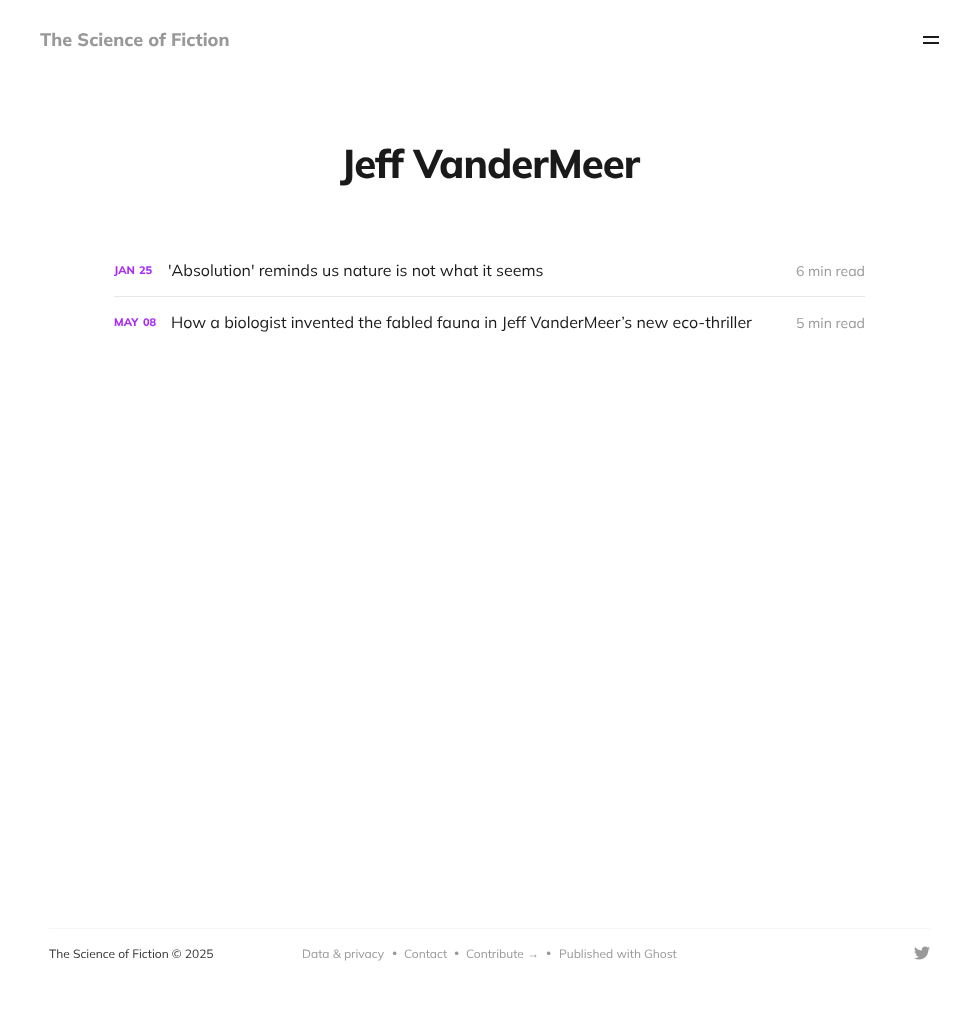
<svg xmlns="http://www.w3.org/2000/svg" width="979" height="1023" viewBox="0 0 979 1023">
  <rect width="100%" height="100%" fill="rgb(255,255,255)"/>
  <text x="40" y="46" font-family="Mulish" font-size="18" font-weight="800" fill="rgb(153,153,153)">The Science of Fiction</text>
  <rect x="923" y="36" width="16" height="2" fill="rgb(26,26,26)"/>
  <rect x="923" y="42" width="16" height="2" fill="rgb(26,26,26)"/>
  <text x="340" y="178" font-family="Mulish" font-size="40" font-weight="800" letter-spacing="-1" fill="rgb(26,26,26)">Jeff VanderMeer</text>
  <g font-family="Mulish" font-size="11" font-weight="800" fill="rgb(168,45,251)">
    <text x="114" y="274">JAN</text>
    <text x="139" y="274">25</text>
  </g>
  <text x="168" y="276" font-family="Mulish" font-size="16" fill="rgb(26,26,26)">'Absolution' reminds us nature is not what it seems</text>
  <text x="796" y="276" font-family="Mulish" font-size="14" fill="rgb(153,153,153)">6 min read</text>
  <rect x="114" y="296" width="751" height="1" fill="rgb(230,230,230)"/>
  <g font-family="Mulish" font-size="11" font-weight="800" fill="rgb(168,45,251)">
    <text x="114" y="326">MAY</text>
    <text x="143" y="326">08</text>
  </g>
  <text x="171" y="328" font-family="Mulish" font-size="16" fill="rgb(26,26,26)">How a biologist invented the fabled fauna in Jeff VanderMeer’s new eco-thriller</text>
  <text x="796" y="328" font-family="Mulish" font-size="14" fill="rgb(153,153,153)">5 min read</text>
  <rect x="49" y="928" width="881" height="1" fill="rgb(246,246,246)"/>
  <text x="49" y="958" font-family="Mulish" font-size="12" fill="rgb(51,51,51)">The Science of Fiction © 2025</text>
  <text x="302" y="958" font-family="Mulish" font-size="12" fill="rgb(153,153,153)">Data &amp; privacy</text>
  <text x="392" y="956" font-family="Mulish" font-size="10" fill="rgb(153,153,153)">•</text>
  <text x="404" y="958" font-family="Mulish" font-size="12" fill="rgb(153,153,153)">Contact</text>
  <text x="454" y="956" font-family="Mulish" font-size="10" fill="rgb(153,153,153)">•</text>
  <text x="466" y="958" font-family="Mulish" font-size="12" fill="rgb(153,153,153)">Contribute</text>
  <text x="527" y="958" font-family="Liberation Sans" font-size="12" fill="rgb(153,153,153)">→</text>
  <text x="546" y="956" font-family="Mulish" font-size="10" fill="rgb(153,153,153)">•</text>
  <text x="559" y="958" font-family="Mulish" font-size="12" fill="rgb(153,153,153)">Published with Ghost</text>
  <image x="914" y="946" width="16" height="14" href="pic1.png"/>
</svg>
